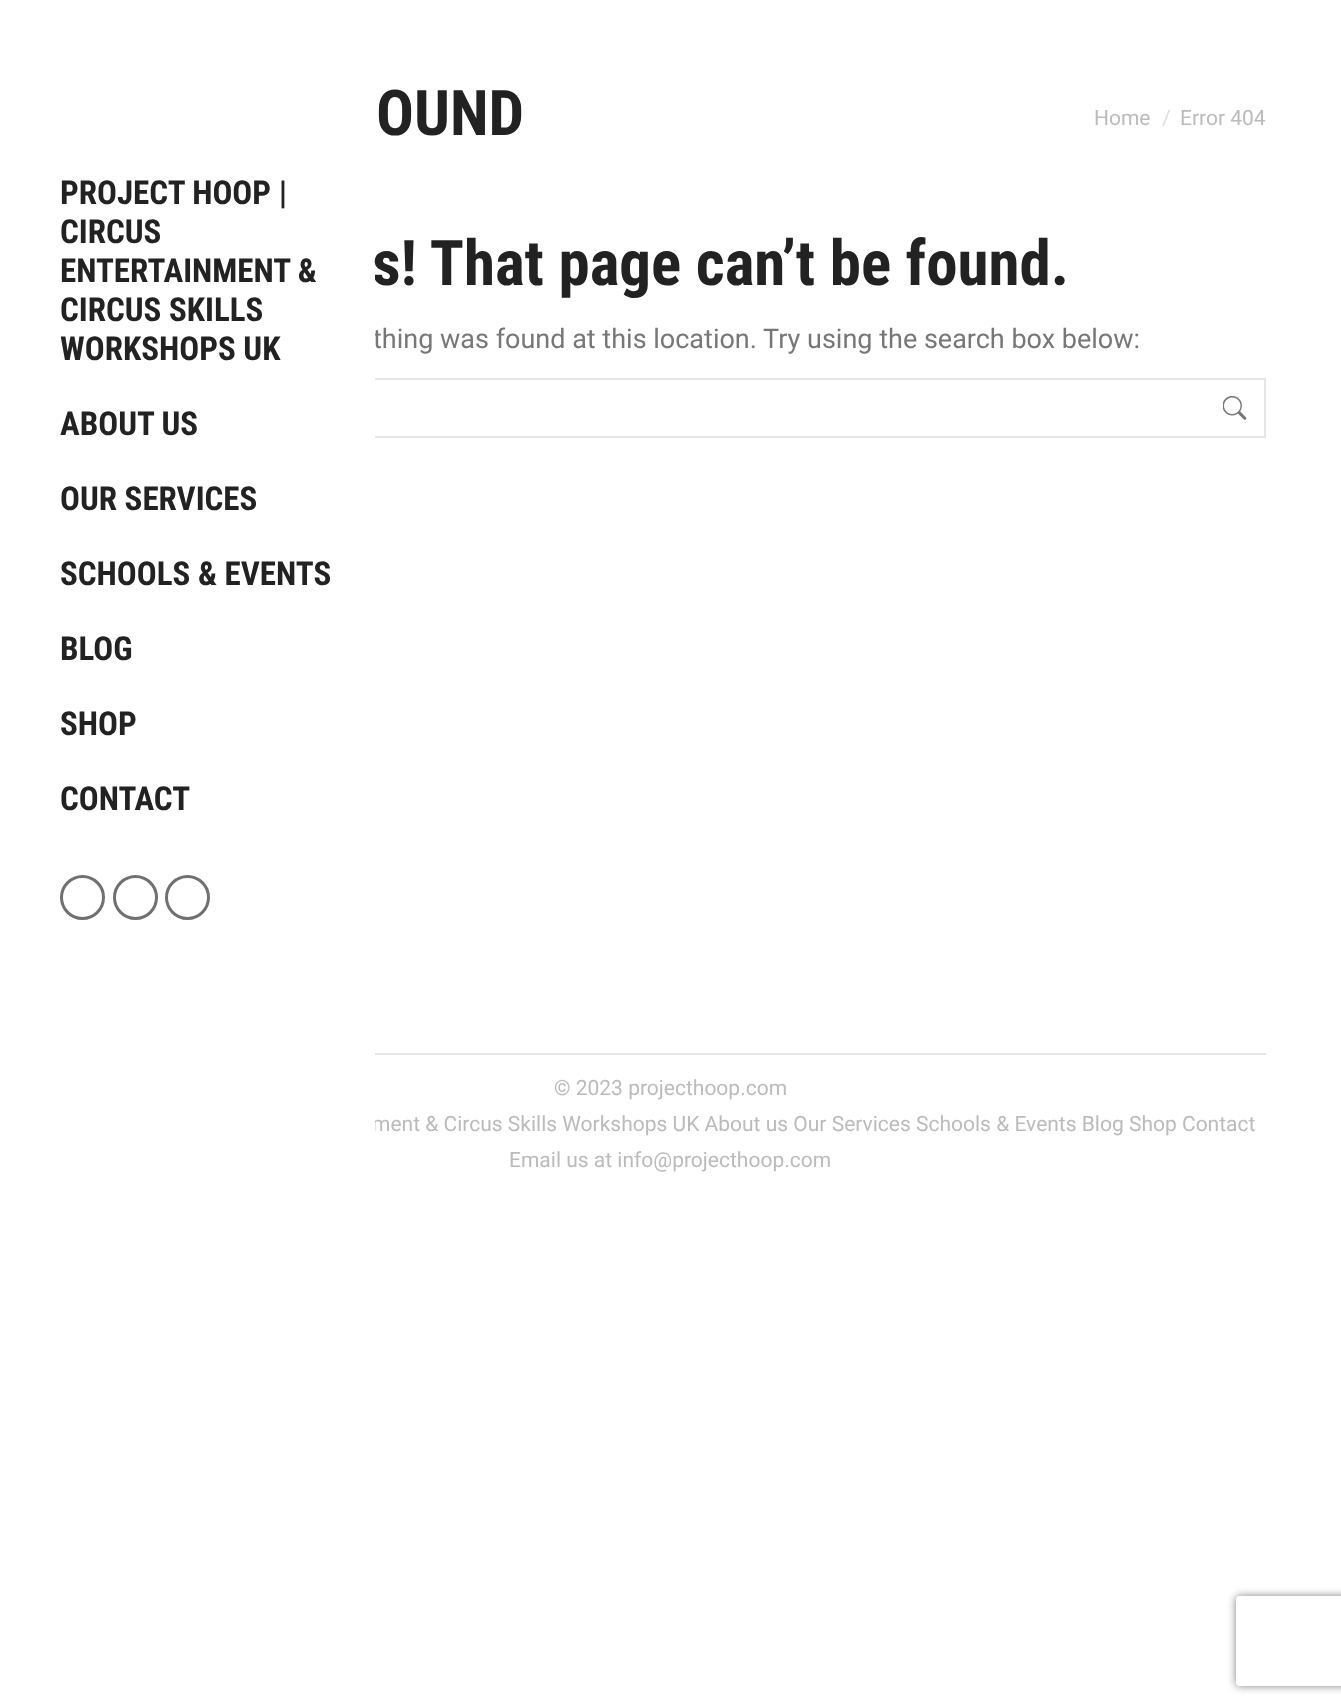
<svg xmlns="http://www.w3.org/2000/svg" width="1341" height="1707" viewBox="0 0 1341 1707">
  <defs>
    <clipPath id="clip1"><path d="M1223 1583H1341V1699H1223ZM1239 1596H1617C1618.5 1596 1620 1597.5 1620 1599V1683C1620 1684.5 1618.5 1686 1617 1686H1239C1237.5 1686 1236 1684.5 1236 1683V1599C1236 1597.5 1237.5 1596 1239 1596Z" clip-rule="evenodd"/></clipPath>
  </defs>
  <rect width="100%" height="100%" fill="rgb(255,255,255)"/>
  <text x="376" y="135" font-family="Roboto Condensed" font-size="63" font-weight="bold" fill="rgb(34,34,34)">OUND</text>
  <text x="1094" y="125" font-family="Roboto" font-size="21" fill="rgb(187,187,187)">Home</text>
  <text x="1162" y="125" font-family="Roboto" font-size="21" fill="rgb(221,221,221)">/</text>
  <text x="1180" y="125" font-family="Roboto" font-size="21" fill="rgb(187,187,187)">Error 404</text>
  <text x="372" y="285" font-family="Roboto Condensed" font-size="63" font-weight="bold" fill="rgb(34,34,34)">s! That page can’t be found.</text>
  <text x="373" y="348" font-family="Roboto" font-size="27" fill="rgb(119,119,119)">thing was found at this location. Try using the search box below:</text>
  <rect x="76" y="379" width="1189" height="58" fill="none" stroke="rgb(230,230,230)" stroke-width="2"/>
  <text x="372" y="1131" font-family="Roboto" font-size="21" fill="rgb(187,187,187)">ment &amp; Circus Skills Workshops UK About us Our Services Schools &amp; Events Blog Shop Contact</text>
  <rect x="75" y="274" width="300" height="857" fill="rgb(255,255,255)"/>
  <g font-family="Roboto Condensed" font-size="33" font-weight="bold" fill="rgb(34,34,34)">
    <text>
      <tspan x="60" y="204">PROJECT HOOP |</tspan>
      <tspan x="60" y="243">CIRCUS</tspan>
      <tspan x="60" y="282">ENTERTAINMENT &amp;</tspan>
      <tspan x="60" y="321">CIRCUS SKILLS</tspan>
      <tspan x="60" y="360">WORKSHOPS UK</tspan>
    </text>
    <text x="60" y="435">ABOUT US</text>
    <text x="60" y="510">OUR SERVICES</text>
    <text x="60" y="585">SCHOOLS &amp; EVENTS</text>
    <text x="60" y="660">BLOG</text>
    <text x="60" y="735">SHOP</text>
    <text x="60" y="810">CONTACT</text>
  </g>
  <circle cx="82.5" cy="897.5" r="21" fill="none" stroke="rgb(112,112,112)" stroke-width="3"/>
  <circle cx="135.5" cy="897.5" r="21" fill="none" stroke="rgb(112,112,112)" stroke-width="3"/>
  <circle cx="187.5" cy="897.5" r="21" fill="none" stroke="rgb(112,112,112)" stroke-width="3"/>
  <image x="1223" y="396" width="24" height="24" href="pic1.png"/>
  <rect x="375" y="1053" width="891" height="2" fill="rgb(230,230,230)"/>
  <g font-family="Roboto" font-size="21" fill="rgb(187,187,187)">
    <text x="554" y="1095">© 2023 projecthoop.com</text>
    <text x="509" y="1167">Email us at info@projecthoop.com</text>
  </g>
  <g clip-path="url(#clip1)">
    <rect x="1236" y="1596" width="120" height="90" rx="3" fill="rgb(128,128,128)" filter="blur(4px)"/>
  </g>
</svg>
